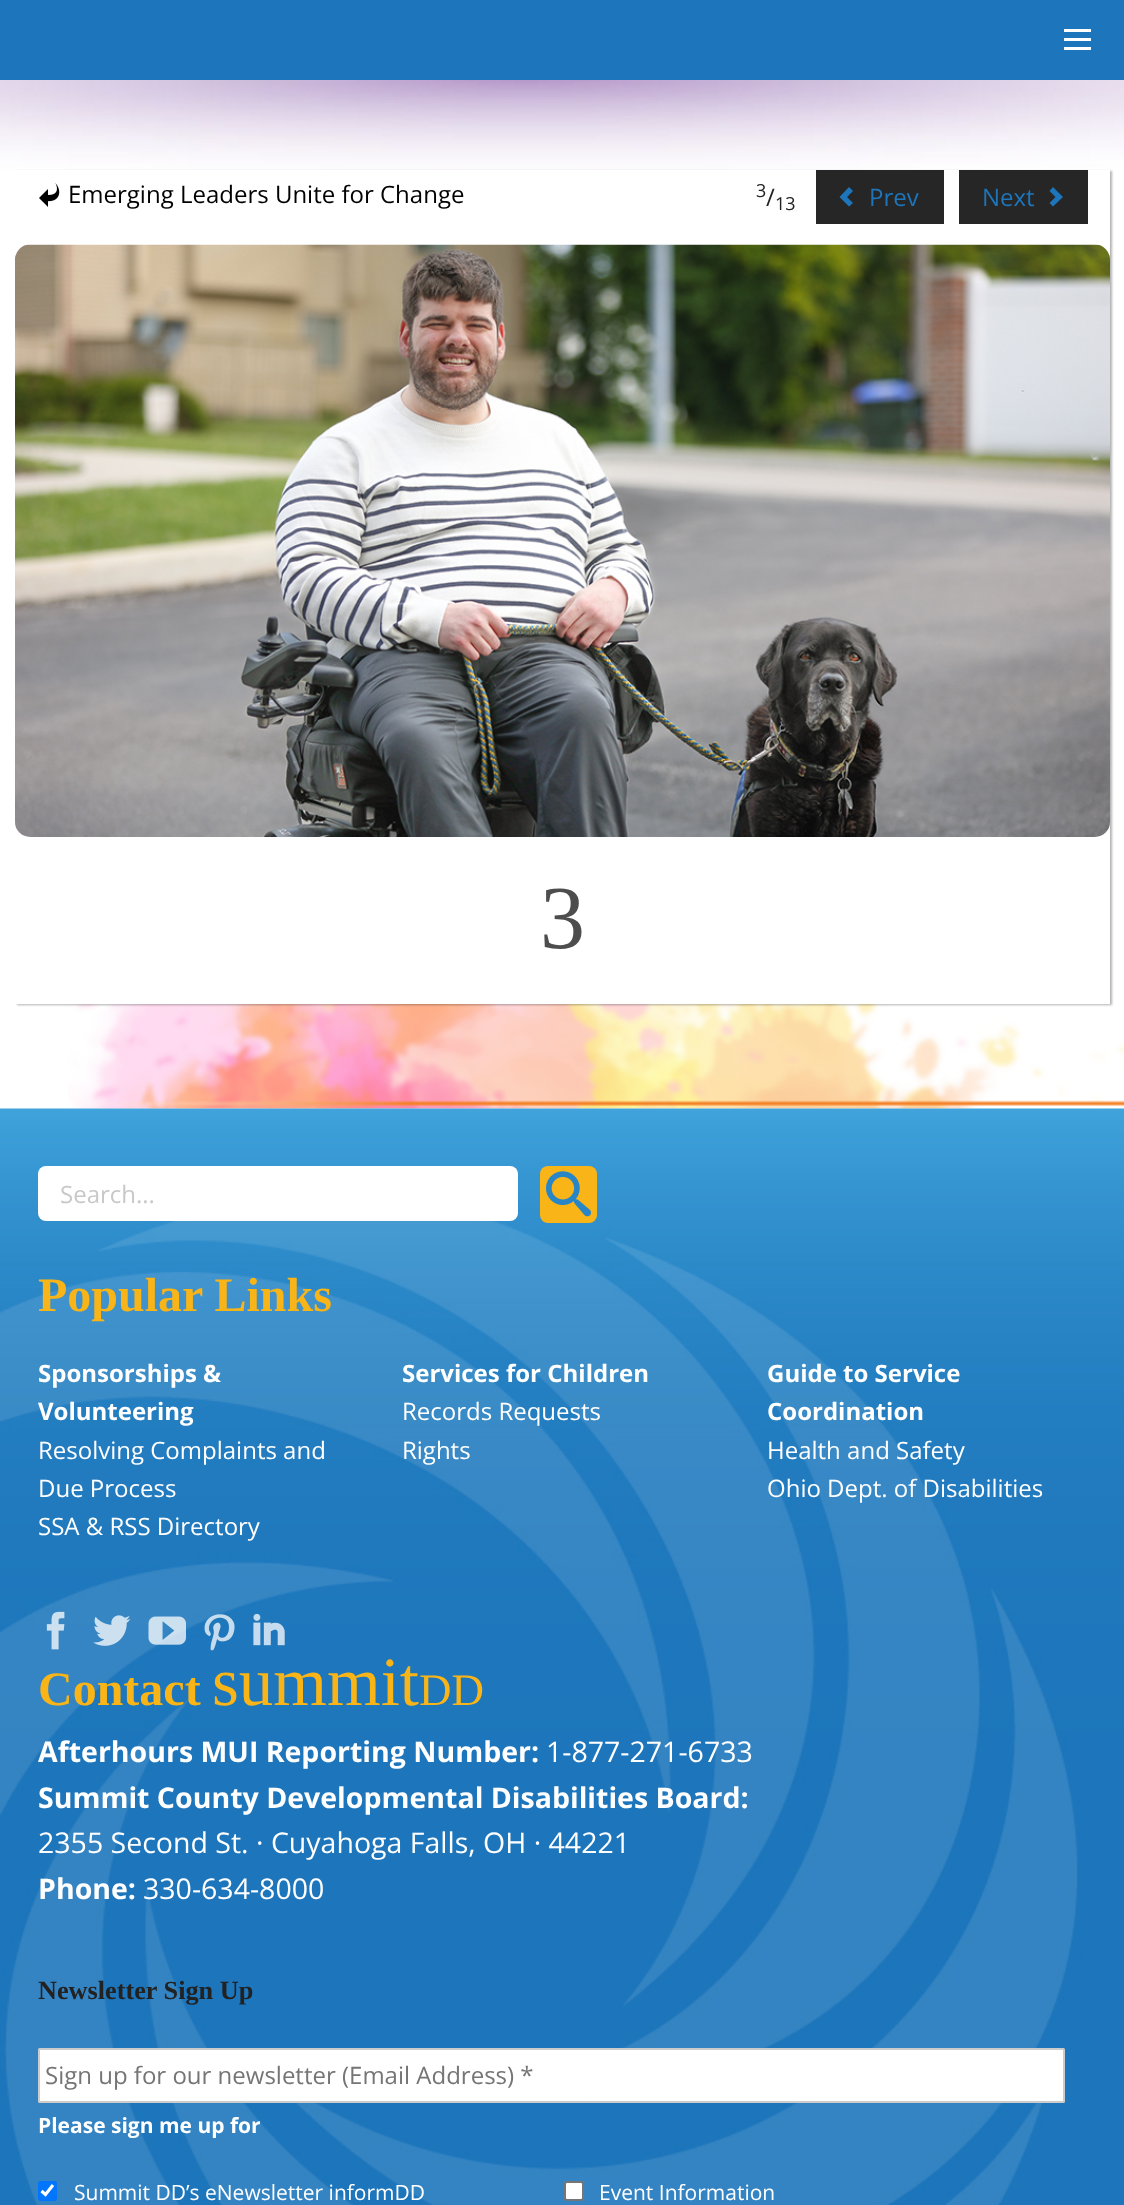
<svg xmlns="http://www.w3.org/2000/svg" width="1124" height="2205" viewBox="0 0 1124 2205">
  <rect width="100%" height="100%" fill="rgb(255,255,255)"/>
  <rect x="0" y="0" width="1124" height="80" fill="rgb(29,118,187)"/>
  <rect x="1064" y="47" width="27" height="3" fill="rgb(255,255,255)"/>
  <rect x="1064" y="38" width="27" height="3" fill="rgb(255,255,255)"/>
  <rect x="1064" y="29" width="27" height="3" fill="rgb(255,255,255)"/>
  <image x="68" y="1004" width="1056" height="105" href="pic1.png"/>
  <image x="0" y="80" width="1124" height="90" href="pic2.png"/>
  <rect x="17" y="171" width="1095" height="834" fill="rgba(0,0,0,0.3)" filter="blur(1px)"/>
  <rect x="15" y="170" width="1095" height="834" fill="rgb(255,255,255)"/>
  <image x="39" y="183" width="21" height="24" href="pic3.png"/>
  <text x="68" y="203" font-family="Open Sans" font-size="24" fill="rgb(1,0,0)">Emerging Leaders Unite for Change</text>
  <text x="756" y="197" font-family="Open Sans" font-size="18" fill="rgb(34,34,34)">3</text>
  <text x="766" y="206" font-family="Open Sans" font-size="24" fill="rgb(34,34,34)">/</text>
  <text x="775" y="210" font-family="Open Sans" font-size="18" fill="rgb(34,34,34)">13</text>
  <rect x="816" y="170" width="128" height="54" fill="rgb(38,38,38)"/>
  <path d="M853 203L849 206.5L839.5 197L849 187L853 191L847 197Z" fill="rgb(29,118,187)"/>
  <text x="869" y="206" font-family="Open Sans" font-size="24" fill="rgb(29,118,187)">Prev</text>
  <rect x="959" y="170" width="129" height="54" fill="rgb(38,38,38)"/>
  <text x="982" y="206" font-family="Open Sans" font-size="24" fill="rgb(29,118,187)">Next</text>
  <path d="M1049.5 203L1053 206.5L1063 197L1053 187L1049.5 191L1055.5 197Z" fill="rgb(29,118,187)"/>
  <image x="15" y="244" width="1095" height="593" href="pic4.png"/>
  <text x="540" y="948" font-family="Liberation Serif" font-size="90" fill="rgb(77,77,77)">3</text>
  <image x="0" y="1108" width="1124" height="1097" href="pic5.png"/>
  <rect x="38" y="1166" width="480" height="55" rx="8" fill="rgb(255,255,255)"/>
  <text x="60" y="1203" font-family="Open Sans" font-size="24" fill="rgb(200,200,200)">Search...</text>
  <rect x="540" y="1166" width="57" height="57" rx="8" fill="rgb(249,180,23)"/>
  <image x="546" y="1171" width="45" height="46" href="pic6.png"/>
  <text x="38" y="1311" font-family="Liberation Serif" font-size="48" font-weight="bold" fill="rgb(249,180,23)">Popular Links</text>
  <g font-family="Open Sans" font-size="24" font-weight="bold" fill="rgb(255,255,255)">
    <text>
      <tspan x="38" y="1382">Sponsorships &amp;</tspan>
      <tspan x="38" y="1420">Volunteering</tspan>
    </text>
  </g>
  <g font-family="Open Sans" font-size="24" fill="rgb(255,255,255)">
    <text>
      <tspan x="38" y="1459">Resolving Complaints and</tspan>
      <tspan x="38" y="1497">Due Process</tspan>
      <tspan x="38" y="1535">SSA &amp; RSS Directory</tspan>
    </text>
  </g>
  <text x="402" y="1382" font-family="Open Sans" font-size="24" font-weight="bold" fill="rgb(255,255,255)">Services for Children</text>
  <g font-family="Open Sans" font-size="24" fill="rgb(255,255,255)">
    <text>
      <tspan x="402" y="1420">Records Requests</tspan>
      <tspan x="402" y="1459">Rights</tspan>
    </text>
  </g>
  <g font-family="Open Sans" font-size="24" font-weight="bold" fill="rgb(255,255,255)">
    <text>
      <tspan x="767" y="1382">Guide to Service</tspan>
      <tspan x="767" y="1420">Coordination</tspan>
    </text>
  </g>
  <g font-family="Open Sans" font-size="24" fill="rgb(255,255,255)">
    <text>
      <tspan x="767" y="1459">Health and Safety</tspan>
      <tspan x="767" y="1497">Ohio Dept. of Disabilities</tspan>
    </text>
  </g>
  <image x="46" y="1611" width="19" height="39" href="pic7.png"/>
  <image x="93" y="1615" width="38" height="31" href="pic8.png"/>
  <image x="148" y="1616" width="38" height="29" href="pic9.png"/>
  <image x="204" y="1614" width="31" height="37" href="pic10.png"/>
  <image x="253" y="1613" width="32" height="33" href="pic11.png"/>
  <text x="38" y="1705" font-family="Liberation Serif" font-size="48" font-weight="bold" fill="rgb(249,180,23)">Contact</text>
  <text x="212" y="1705" font-family="Liberation Serif" font-size="69" fill="rgb(249,180,23)">summit</text>
  <text x="419" y="1705" font-family="Liberation Serif" font-size="45" fill="rgb(249,180,23)">DD</text>
  <text x="38" y="1762" font-family="Open Sans" font-size="28.5" font-weight="bold" fill="rgb(255,255,255)">Afterhours MUI Reporting Number:</text>
  <text x="546" y="1762" font-family="Open Sans" font-size="28.5" fill="rgb(255,255,255)">1-877-271-6733</text>
  <text x="38" y="1808" font-family="Open Sans" font-size="28.5" font-weight="bold" fill="rgb(255,255,255)">Summit County Developmental Disabilities Board:</text>
  <text x="38" y="1853" font-family="Open Sans" font-size="28.5" fill="rgb(255,255,255)">2355 Second St. · Cuyahoga Falls, OH · 44221</text>
  <text x="38" y="1899" font-family="Open Sans" font-size="28.5" font-weight="bold" fill="rgb(255,255,255)">Phone:</text>
  <text x="143" y="1899" font-family="Open Sans" font-size="28.5" fill="rgb(255,255,255)">330-634-8000</text>
  <text x="38" y="1999" font-family="Liberation Serif" font-size="26.25" font-weight="bold" fill="rgb(34,34,34)">Newsletter Sign Up</text>
  <rect x="39" y="2049" width="1025" height="53" rx="0.5" fill="rgb(255,255,255)" stroke="rgb(204,204,204)" stroke-width="2"/>
  <text x="45" y="2084" font-family="Open Sans" font-size="24" fill="rgb(117,117,117)">Sign up for our newsletter (Email Address) *</text>
  <text x="38" y="2133" font-family="Open Sans" font-size="21" font-weight="bold" fill="rgb(255,255,255)">Please sign me up for</text>
  <rect x="38" y="2181" width="19" height="20" rx="3" fill="rgb(0,117,255)"/>
  <path d="M41.5 2191L45.5 2194.5L53 2185" fill="none" stroke="rgb(255,255,255)" stroke-width="3.1"/>
  <text x="74" y="2200" font-family="Open Sans" font-size="21" fill="rgb(255,255,255)">Summit DD’s eNewsletter informDD</text>
  <rect x="565" y="2182" width="18" height="18" rx="2" fill="rgb(255,255,255)" stroke="rgb(118,118,118)" stroke-width="2"/>
  <text x="599" y="2200" font-family="Open Sans" font-size="21" fill="rgb(255,255,255)">Event Information</text>
</svg>
